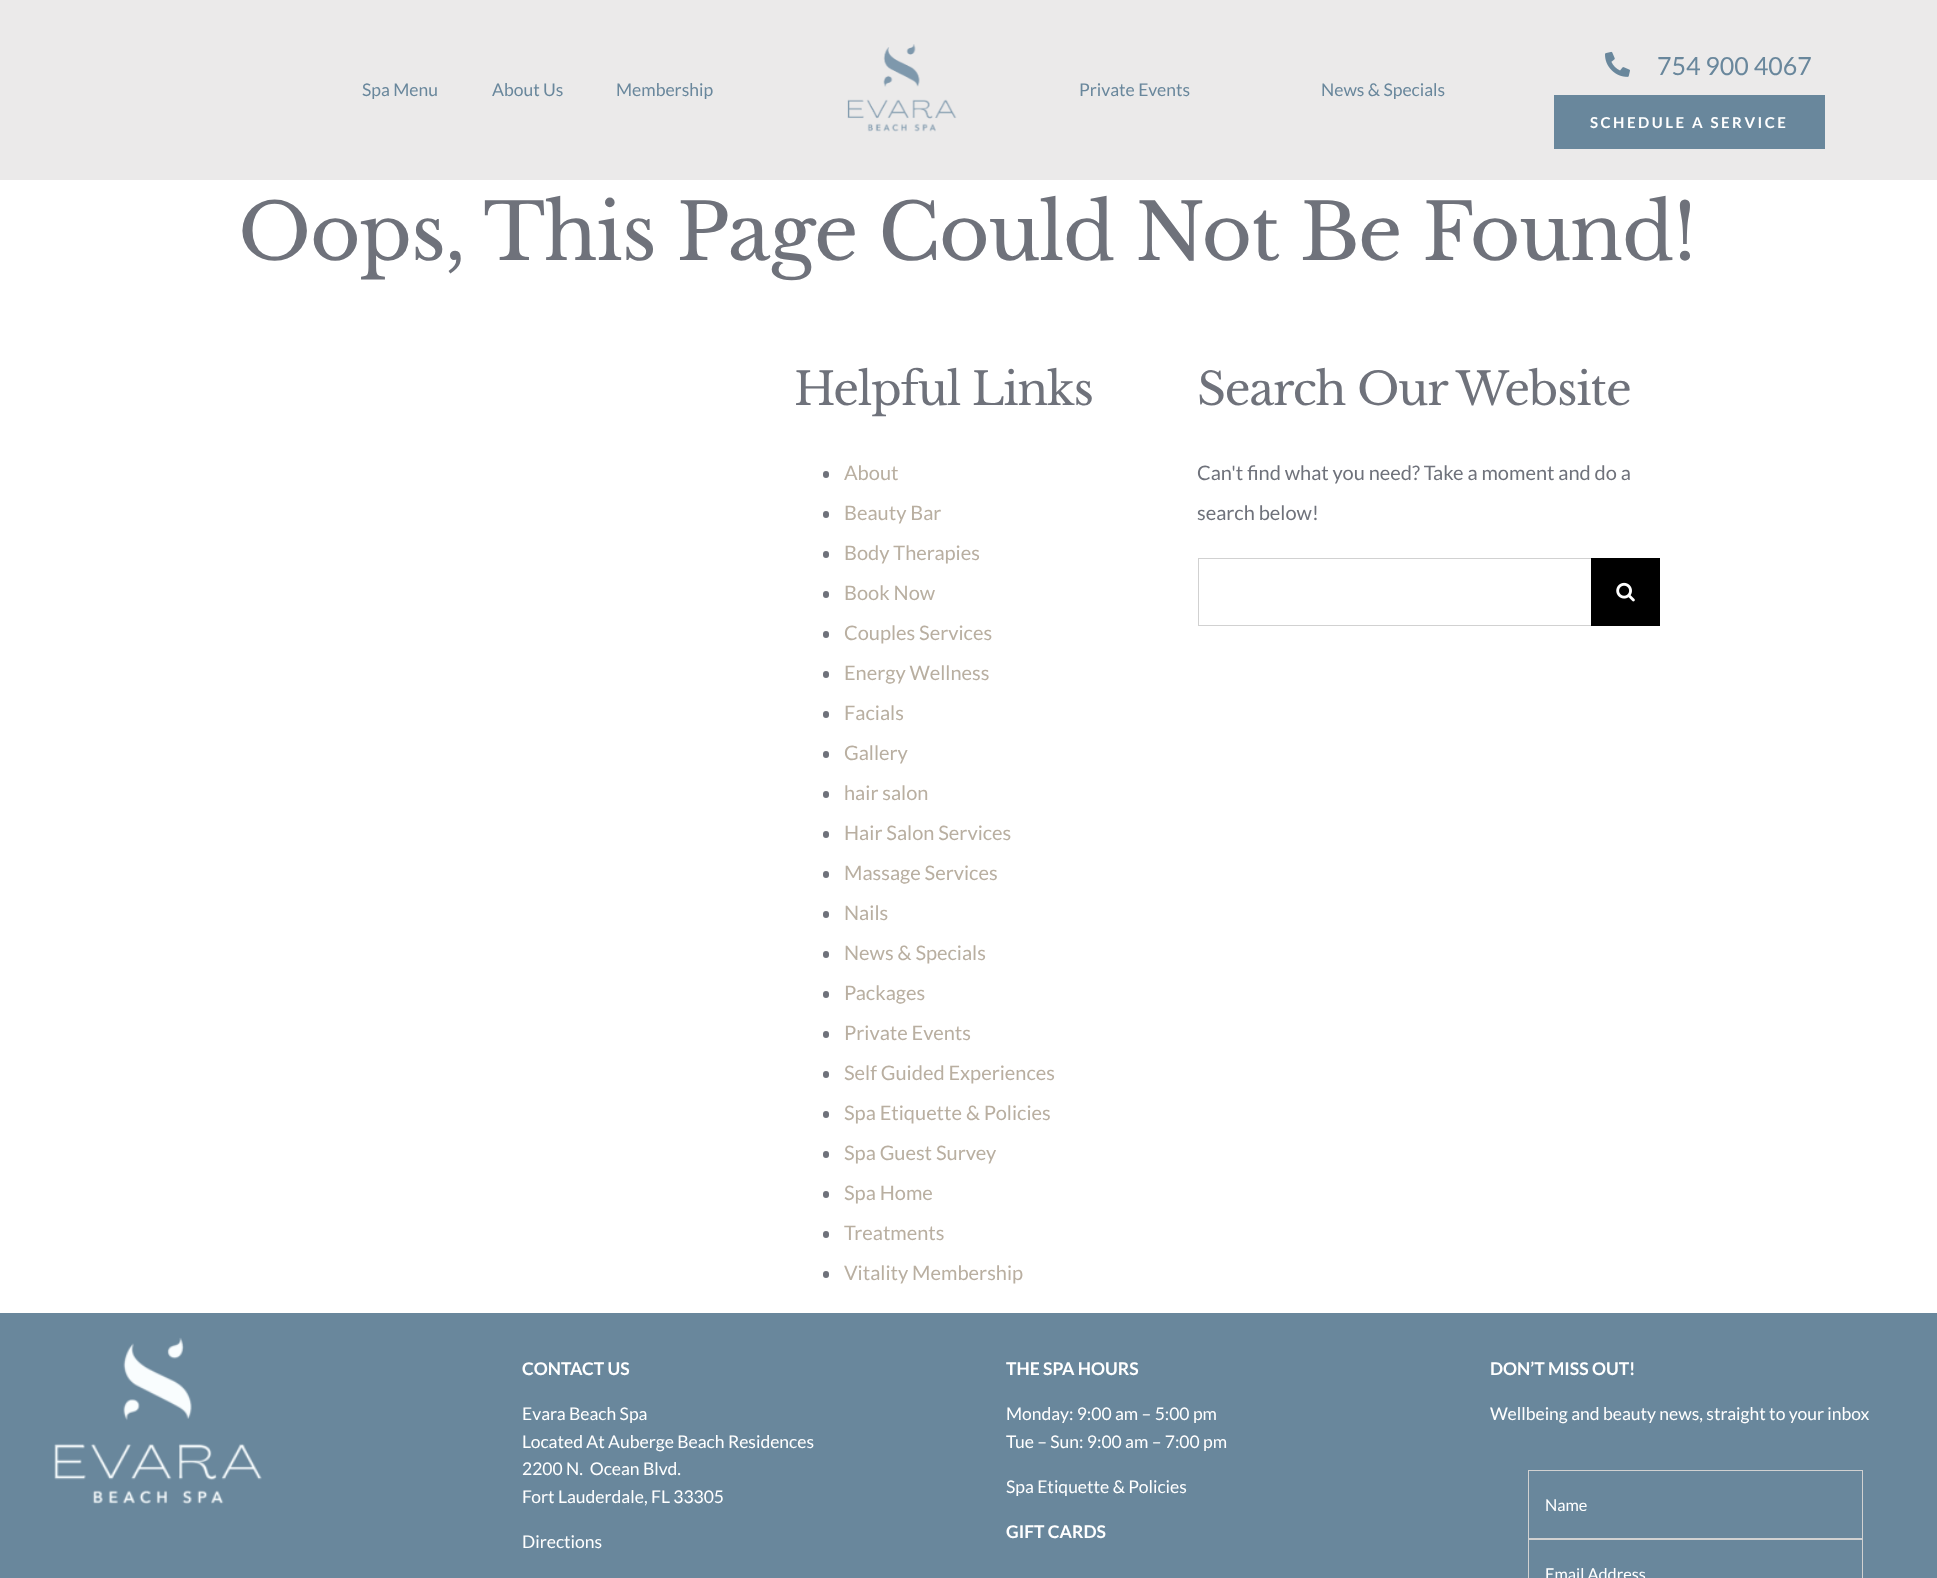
<svg xmlns="http://www.w3.org/2000/svg" width="1937" height="1578" viewBox="0 0 1937 1578">
  <rect width="100%" height="100%" fill="rgb(255,255,255)"/>
  <rect x="0" y="0" width="1937" height="180" fill="rgb(235,234,234)"/>
  <g font-family="Lato" font-size="17.5" fill="rgb(105,135,156)">
    <text x="362" y="96">Spa Menu</text>
    <text x="492" y="96">About Us</text>
    <text x="616" y="96">Membership</text>
  </g>
  <image x="847" y="44" width="110" height="88" href="pic1.png"/>
  <g font-family="Lato" font-size="17.5" fill="rgb(105,135,156)">
    <text x="1079" y="96">Private Events</text>
    <text x="1321" y="96">News &amp; Specials</text>
  </g>
  <image x="1605" y="51" width="25" height="26" href="pic2.png"/>
  <text x="1657" y="75" font-family="Lato" font-size="25" fill="rgb(105,135,156)">754 900 4067</text>
  <rect x="1554" y="95" width="271" height="54" fill="rgb(105,135,156)"/>
  <text x="1590" y="128" font-family="Lato" font-size="15" font-weight="bold" letter-spacing="2.5" fill="rgb(255,255,255)">SCHEDULE A SERVICE</text>
  <text x="238" y="260" font-family="Libre Baskerville" font-size="77.5" letter-spacing="-1.25" fill="rgb(111,114,123)">Oops, This Page Could Not Be Found!</text>
  <text x="794" y="405" font-family="Libre Baskerville" font-size="45" letter-spacing="-1.25" fill="rgb(111,114,123)">Helpful Links</text>
  <rect x="823" y="471" width="6" height="7" rx="3" fill="rgb(111,114,123)"/>
  <text x="844" y="480" font-family="Lato" font-size="20" fill="rgb(185,175,161)">About</text>
  <rect x="823" y="511" width="6" height="7" rx="3" fill="rgb(111,114,123)"/>
  <text x="844" y="520" font-family="Lato" font-size="20" fill="rgb(185,175,161)">Beauty Bar</text>
  <rect x="823" y="551" width="6" height="7" rx="3" fill="rgb(111,114,123)"/>
  <text x="844" y="560" font-family="Lato" font-size="20" fill="rgb(185,175,161)">Body Therapies</text>
  <rect x="823" y="591" width="6" height="7" rx="3" fill="rgb(111,114,123)"/>
  <text x="844" y="600" font-family="Lato" font-size="20" fill="rgb(185,175,161)">Book Now</text>
  <rect x="823" y="631" width="6" height="7" rx="3" fill="rgb(111,114,123)"/>
  <text x="844" y="640" font-family="Lato" font-size="20" fill="rgb(185,175,161)">Couples Services</text>
  <rect x="823" y="671" width="6" height="7" rx="3" fill="rgb(111,114,123)"/>
  <text x="844" y="680" font-family="Lato" font-size="20" fill="rgb(185,175,161)">Energy Wellness</text>
  <rect x="823" y="711" width="6" height="7" rx="3" fill="rgb(111,114,123)"/>
  <text x="844" y="720" font-family="Lato" font-size="20" fill="rgb(185,175,161)">Facials</text>
  <rect x="823" y="751" width="6" height="7" rx="3" fill="rgb(111,114,123)"/>
  <text x="844" y="760" font-family="Lato" font-size="20" fill="rgb(185,175,161)">Gallery</text>
  <rect x="823" y="791" width="6" height="7" rx="3" fill="rgb(111,114,123)"/>
  <text x="844" y="800" font-family="Lato" font-size="20" fill="rgb(185,175,161)">hair salon</text>
  <rect x="823" y="831" width="6" height="7" rx="3" fill="rgb(111,114,123)"/>
  <text x="844" y="840" font-family="Lato" font-size="20" fill="rgb(185,175,161)">Hair Salon Services</text>
  <rect x="823" y="871" width="6" height="7" rx="3" fill="rgb(111,114,123)"/>
  <text x="844" y="880" font-family="Lato" font-size="20" fill="rgb(185,175,161)">Massage Services</text>
  <rect x="823" y="911" width="6" height="7" rx="3" fill="rgb(111,114,123)"/>
  <text x="844" y="920" font-family="Lato" font-size="20" fill="rgb(185,175,161)">Nails</text>
  <rect x="823" y="951" width="6" height="7" rx="3" fill="rgb(111,114,123)"/>
  <text x="844" y="960" font-family="Lato" font-size="20" fill="rgb(185,175,161)">News &amp; Specials</text>
  <rect x="823" y="991" width="6" height="7" rx="3" fill="rgb(111,114,123)"/>
  <text x="844" y="1000" font-family="Lato" font-size="20" fill="rgb(185,175,161)">Packages</text>
  <rect x="823" y="1031" width="6" height="7" rx="3" fill="rgb(111,114,123)"/>
  <text x="844" y="1040" font-family="Lato" font-size="20" fill="rgb(185,175,161)">Private Events</text>
  <rect x="823" y="1071" width="6" height="7" rx="3" fill="rgb(111,114,123)"/>
  <text x="844" y="1080" font-family="Lato" font-size="20" fill="rgb(185,175,161)">Self Guided Experiences</text>
  <rect x="823" y="1111" width="6" height="7" rx="3" fill="rgb(111,114,123)"/>
  <text x="844" y="1120" font-family="Lato" font-size="20" fill="rgb(185,175,161)">Spa Etiquette &amp; Policies</text>
  <rect x="823" y="1151" width="6" height="7" rx="3" fill="rgb(111,114,123)"/>
  <text x="844" y="1160" font-family="Lato" font-size="20" fill="rgb(185,175,161)">Spa Guest Survey</text>
  <rect x="823" y="1191" width="6" height="7" rx="3" fill="rgb(111,114,123)"/>
  <text x="844" y="1200" font-family="Lato" font-size="20" fill="rgb(185,175,161)">Spa Home</text>
  <rect x="823" y="1231" width="6" height="7" rx="3" fill="rgb(111,114,123)"/>
  <text x="844" y="1240" font-family="Lato" font-size="20" fill="rgb(185,175,161)">Treatments</text>
  <rect x="823" y="1271" width="6" height="7" rx="3" fill="rgb(111,114,123)"/>
  <text x="844" y="1280" font-family="Lato" font-size="20" fill="rgb(185,175,161)">Vitality Membership</text>
  <text x="1197" y="405" font-family="Libre Baskerville" font-size="45" letter-spacing="-1.25" fill="rgb(111,114,123)">Search Our Website</text>
  <g font-family="Lato" font-size="20" fill="rgb(111,114,123)">
    <text x="1197" y="480">Can't find what you need? Take a moment and do a</text>
    <text x="1197" y="520">search below!</text>
  </g>
  <rect x="1198" y="558" width="393" height="1" fill="rgb(209,209,209)"/>
  <rect x="1198" y="625" width="393" height="1" fill="rgb(209,209,209)"/>
  <rect x="1198" y="558" width="1" height="68" fill="rgb(209,209,209)"/>
  <rect x="1591" y="558" width="69" height="68" fill="rgb(0,0,0)"/>
  <image x="1616" y="582" width="19" height="20" href="pic3.png"/>
  <rect x="0" y="1313" width="1937" height="265" fill="rgb(105,135,156)"/>
  <image x="54" y="1337" width="208" height="167" href="pic4.png"/>
  <text x="522" y="1375" font-family="Lato" font-size="17.5" font-weight="bold" fill="rgb(255,255,255)">CONTACT US</text>
  <g font-family="Lato" font-size="17.5" fill="rgb(255,255,255)">
    <text xml:space="preserve"><tspan x="522" y="1420">Evara Beach Spa</tspan><tspan x="522" y="1448">Located At Auberge Beach Residences</tspan><tspan x="522" y="1475">2200 N.  Ocean Blvd.</tspan><tspan x="522" y="1503">Fort Lauderdale, FL 33305</tspan></text>
    <text x="522" y="1548">Directions</text>
  </g>
  <text x="1006" y="1375" font-family="Lato" font-size="17.5" font-weight="bold" fill="rgb(255,255,255)">THE SPA HOURS</text>
  <g font-family="Lato" font-size="17.5" fill="rgb(255,255,255)">
    <text>
      <tspan x="1006" y="1420">Monday: 9:00 am – 5:00 pm</tspan>
      <tspan x="1006" y="1448">Tue – Sun: 9:00 am – 7:00 pm</tspan>
    </text>
    <text x="1006" y="1493">Spa Etiquette &amp; Policies</text>
  </g>
  <g font-family="Lato" font-size="17.5" font-weight="bold" fill="rgb(255,255,255)">
    <text x="1006" y="1538">GIFT CARDS</text>
    <text x="1490" y="1375">DON’T MISS OUT!</text>
  </g>
  <text x="1490" y="1420" font-family="Lato" font-size="17.5" fill="rgb(255,255,255)">Wellbeing and beauty news, straight to your inbox</text>
  <rect x="1528.5" y="1470.5" width="334" height="68" fill="none" stroke="rgb(209,209,209)"/>
  <text x="1545" y="1511" font-family="Lato" font-size="16.25" fill="rgb(255,255,255)">Name</text>
  <rect x="1528.5" y="1539.5" width="334" height="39" fill="none" stroke="rgb(209,209,209)"/>
  <text x="1545" y="1580" font-family="Lato" font-size="16.25" fill="rgb(255,255,255)">Email Address</text>
</svg>
